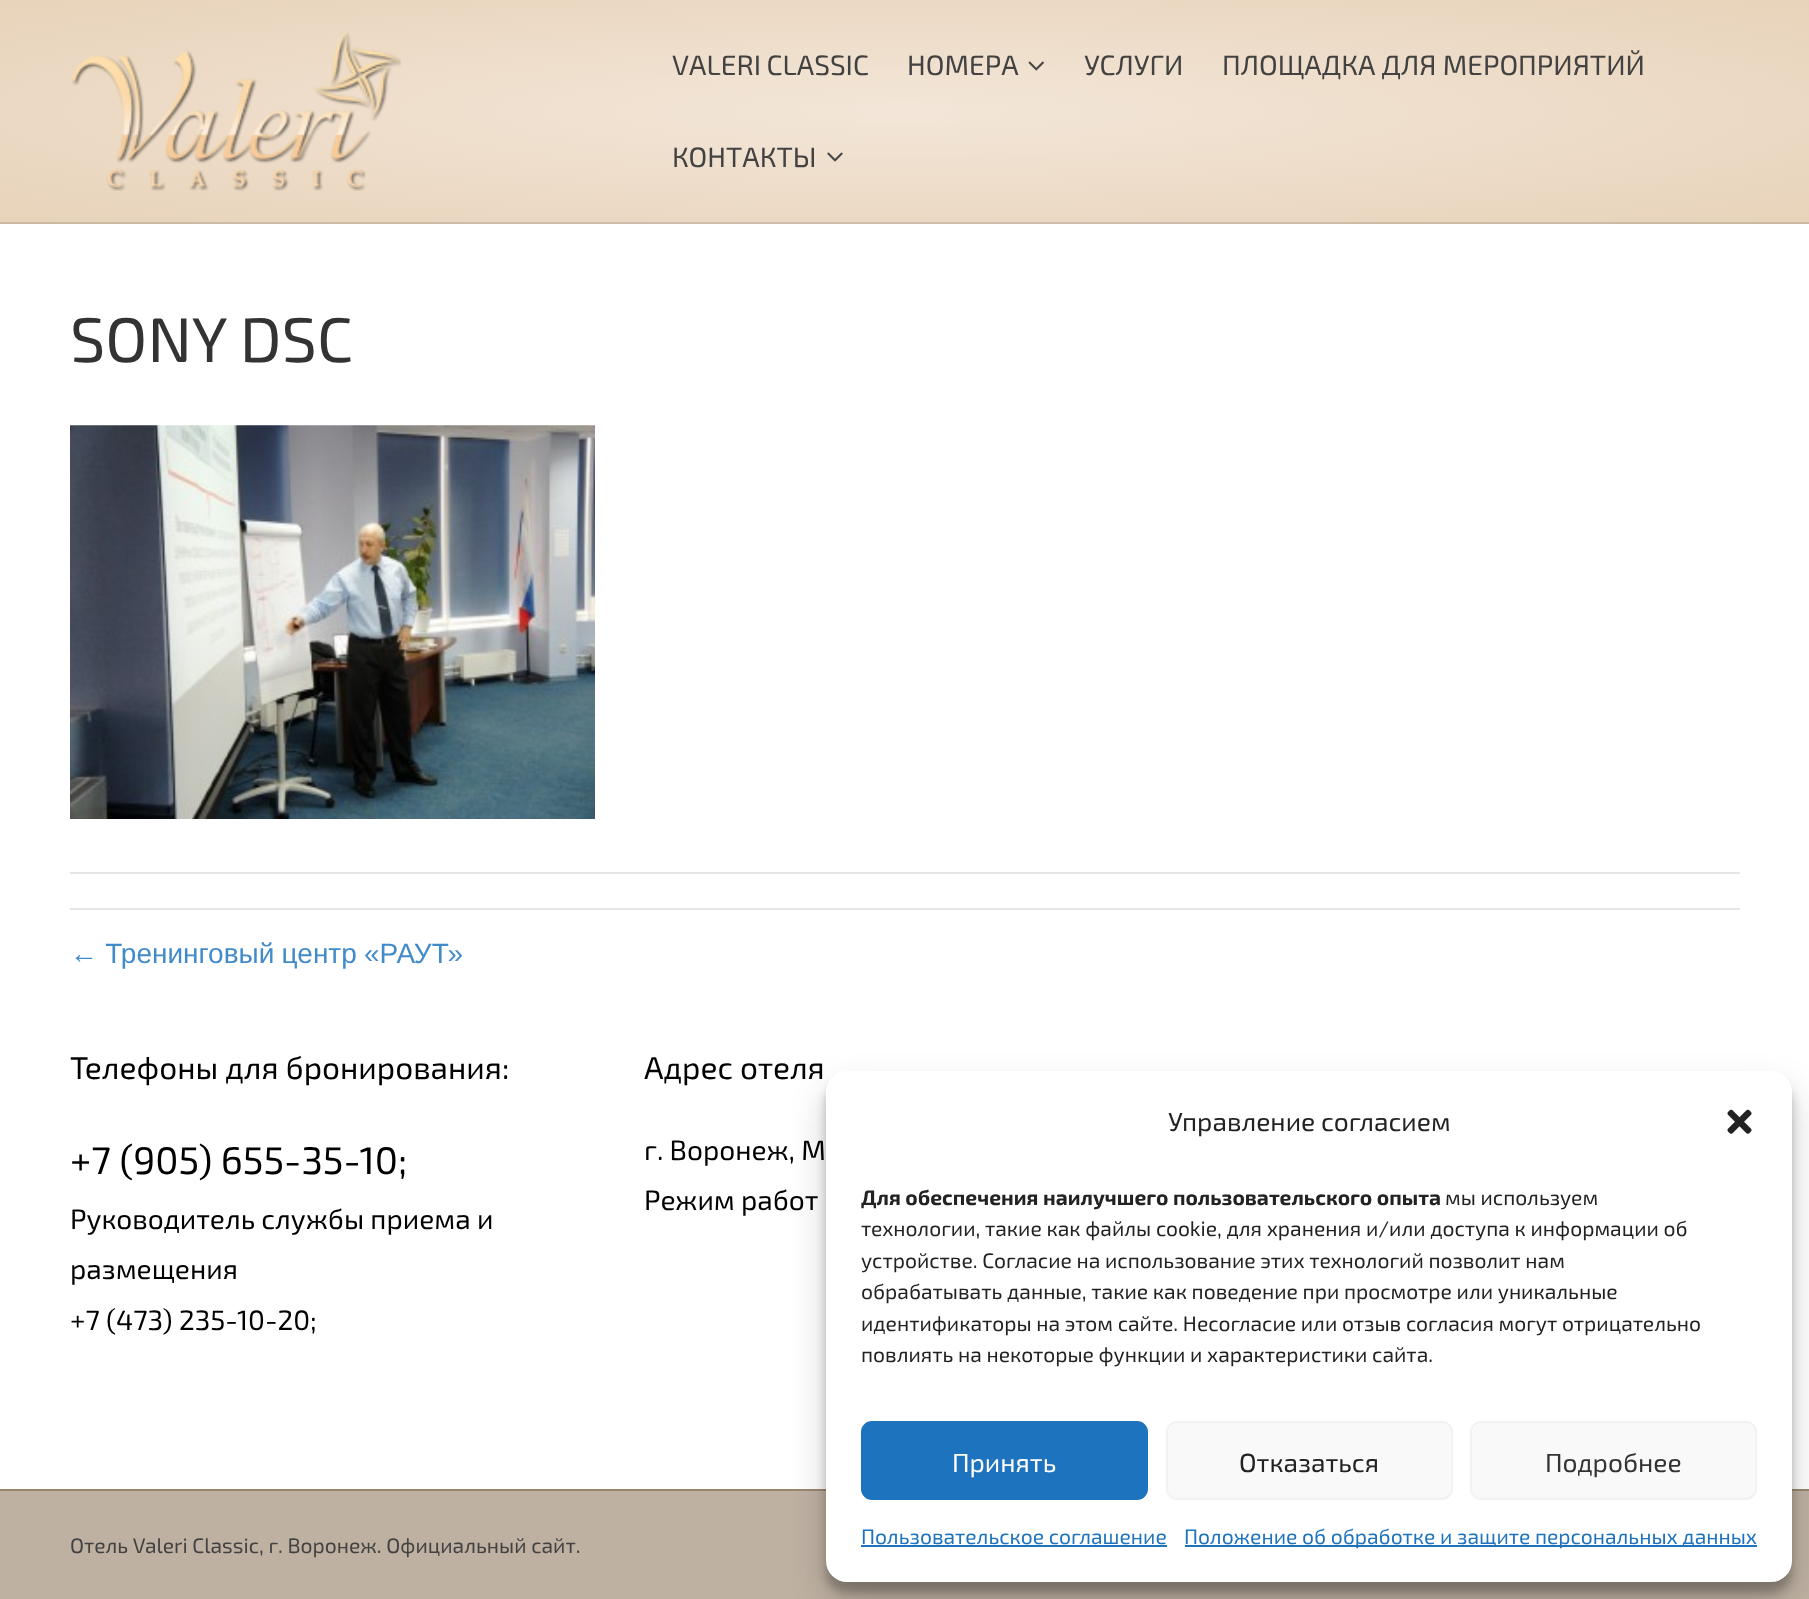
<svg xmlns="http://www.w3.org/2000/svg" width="1809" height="1599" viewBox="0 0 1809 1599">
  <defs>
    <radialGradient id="g1" gradientUnits="userSpaceOnUse" cx="0" cy="0" r="1" gradientTransform="matrix(1280 0 0 158 905 112)"><stop offset="0" stop-color="rgb(243,230,216)"/><stop offset="1" stop-color="rgb(232,211,186)"/></radialGradient>
    <radialGradient id="g2" gradientUnits="userSpaceOnUse" cx="0" cy="0" r="1" gradientTransform="matrix(1280 0 0 158 905 112)"><stop offset="0" stop-color="rgb(211,200,188)"/><stop offset="1" stop-color="rgb(202,184,162)"/></radialGradient>
  </defs>
  <rect width="100%" height="100%" fill="rgb(255,255,255)"/>
  <rect x="0" y="0" width="1809" height="222" fill="url(#g1)"/>
  <rect x="0" y="222" width="1809" height="2" fill="url(#g2)"/>
  <image x="71" y="32" width="330" height="159" href="pic1.png"/>
  <g font-family="'Exo 2'" font-size="28" fill="rgb(66,66,66)">
    <text x="672" y="75" word-spacing="-1">VALERI CLASSIC</text>
    <text x="907" y="75">НОМЕРА</text>
  </g>
  <image x="1028" y="61" width="16" height="10" href="pic2.png"/>
  <g font-family="'Exo 2'" font-size="28" fill="rgb(66,66,66)">
    <text x="1084" y="75">УСЛУГИ</text>
    <text x="1222" y="75">ПЛОЩАДКА ДЛЯ МЕРОПРИЯТИЙ</text>
    <text x="672" y="167">КОНТАКТЫ</text>
  </g>
  <image x="827" y="152" width="16" height="10" href="pic3.png"/>
  <text x="70" y="362" word-spacing="-2" font-family="'Exo 2'" font-size="63" fill="rgb(51,51,51)">SONY DSC</text>
  <image x="70" y="425" width="525" height="394" href="pic4.png"/>
  <rect x="70" y="872" width="1670" height="2" fill="rgb(230,230,230)"/>
  <rect x="70" y="908" width="1670" height="2" fill="rgb(230,230,230)"/>
  <text x="70" y="963" word-spacing="-0.5" font-family="Liberation Sans" font-size="28" fill="rgb(66,139,202)">← Тренинговый центр «РАУТ»</text>
  <text x="70" y="1079" font-family="'Exo 2'" font-size="31.5" fill="rgb(0,0,0)">Телефоны для бронирования:</text>
  <text x="70" y="1174" font-family="'Exo 2'" font-size="38.5" fill="rgb(0,0,0)">+7 (905) 655-35-10;</text>
  <g font-family="'Exo 2'" font-size="28" fill="rgb(0,0,0)">
    <text>
      <tspan x="70" y="1229">Руководитель службы приема и</tspan>
      <tspan x="70" y="1279">размещения</tspan>
      <tspan x="70" y="1330">+7 (473) 235-10-20;</tspan>
    </text>
  </g>
  <text x="644" y="1079" font-family="'Exo 2'" font-size="31.5" fill="rgb(0,0,0)">Адрес отеля</text>
  <g font-family="'Exo 2'" font-size="28" fill="rgb(0,0,0)">
    <text>
      <tspan x="644" y="1160">г. Воронеж, М</tspan>
      <tspan x="644" y="1210">Режим работ</tspan>
    </text>
  </g>
  <rect x="0" y="1491" width="1809" height="108" fill="rgb(190,177,162)"/>
  <rect x="0" y="1489" width="1809" height="2" fill="rgb(153,135,112)"/>
  <text x="70" y="1553" font-family="'Exo 2'" font-size="21" fill="rgb(66,66,66)">Отель Valeri Classic, г. Воронеж. Официальный сайт.</text>
  <rect x="826" y="1082" width="966" height="511" rx="21" fill="rgba(0,0,0,0.23)" filter="blur(5px)"/>
  <rect x="826" y="1089" width="966" height="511" rx="21" fill="rgba(0,0,0,0.19)" filter="blur(17.5px)"/>
  <rect x="826" y="1071" width="966" height="511" rx="21" fill="rgb(255,255,255)"/>
  <text x="1168" y="1131" font-family="'Exo 2'" font-size="26.25" fill="rgb(34,34,34)">Управление согласием</text>
  <image x="1727" y="1109" width="25" height="25" href="pic5.png"/>
  <text x="861" y="1205" font-family="'Exo 2'" font-size="21" font-weight="bold" fill="rgb(34,34,34)">Для обеспечения наилучшего пользовательского опыта</text>
  <g font-family="'Exo 2'" font-size="21" fill="rgb(34,34,34)">
    <text x="1445" y="1205">мы используем</text>
    <text>
      <tspan x="861" y="1236">технологии, такие как файлы cookie, для хранения и/или доступа к информации об</tspan>
      <tspan x="861" y="1268">устройстве. Согласие на использование этих технологий позволит нам</tspan>
      <tspan x="861" y="1299">обрабатывать данные, такие как поведение при просмотре или уникальные</tspan>
      <tspan x="861" y="1331">идентификаторы на этом сайте. Несогласие или отзыв согласия могут отрицательно</tspan>
      <tspan x="861" y="1362">повлиять на некоторые функции и характеристики сайта.</tspan>
    </text>
  </g>
  <rect x="862" y="1422" width="285" height="77" rx="10" fill="rgb(30,115,190)" stroke="rgb(30,115,190)" stroke-width="2"/>
  <text x="952" y="1472" font-family="'Exo 2'" font-size="26.25" fill="rgb(255,255,255)">Принять</text>
  <rect x="1167" y="1422" width="285" height="77" rx="10" fill="rgb(249,249,249)" stroke="rgb(242,242,242)" stroke-width="2"/>
  <text x="1239" y="1472" font-family="'Exo 2'" font-size="26.25" fill="rgb(34,34,34)">Отказаться</text>
  <rect x="1471" y="1422" width="285" height="77" rx="10" fill="rgb(249,249,249)" stroke="rgb(242,242,242)" stroke-width="2"/>
  <text x="1545" y="1472" font-family="'Exo 2'" font-size="26.25" fill="rgb(51,51,51)">Подробнее</text>
  <text x="861" y="1544" font-family="'Exo 2'" font-size="21" fill="rgb(30,115,190)">Пользовательское соглашение</text>
  <rect x="861" y="1545" width="306" height="2" fill="rgb(30,115,190)"/>
  <rect x="1185" y="1545" width="572" height="2" fill="rgb(30,115,190)"/>
  <text x="1184" y="1544" font-family="'Exo 2'" font-size="21" fill="rgb(30,115,190)">Положение об обработке и защите персональных данных</text>
</svg>
